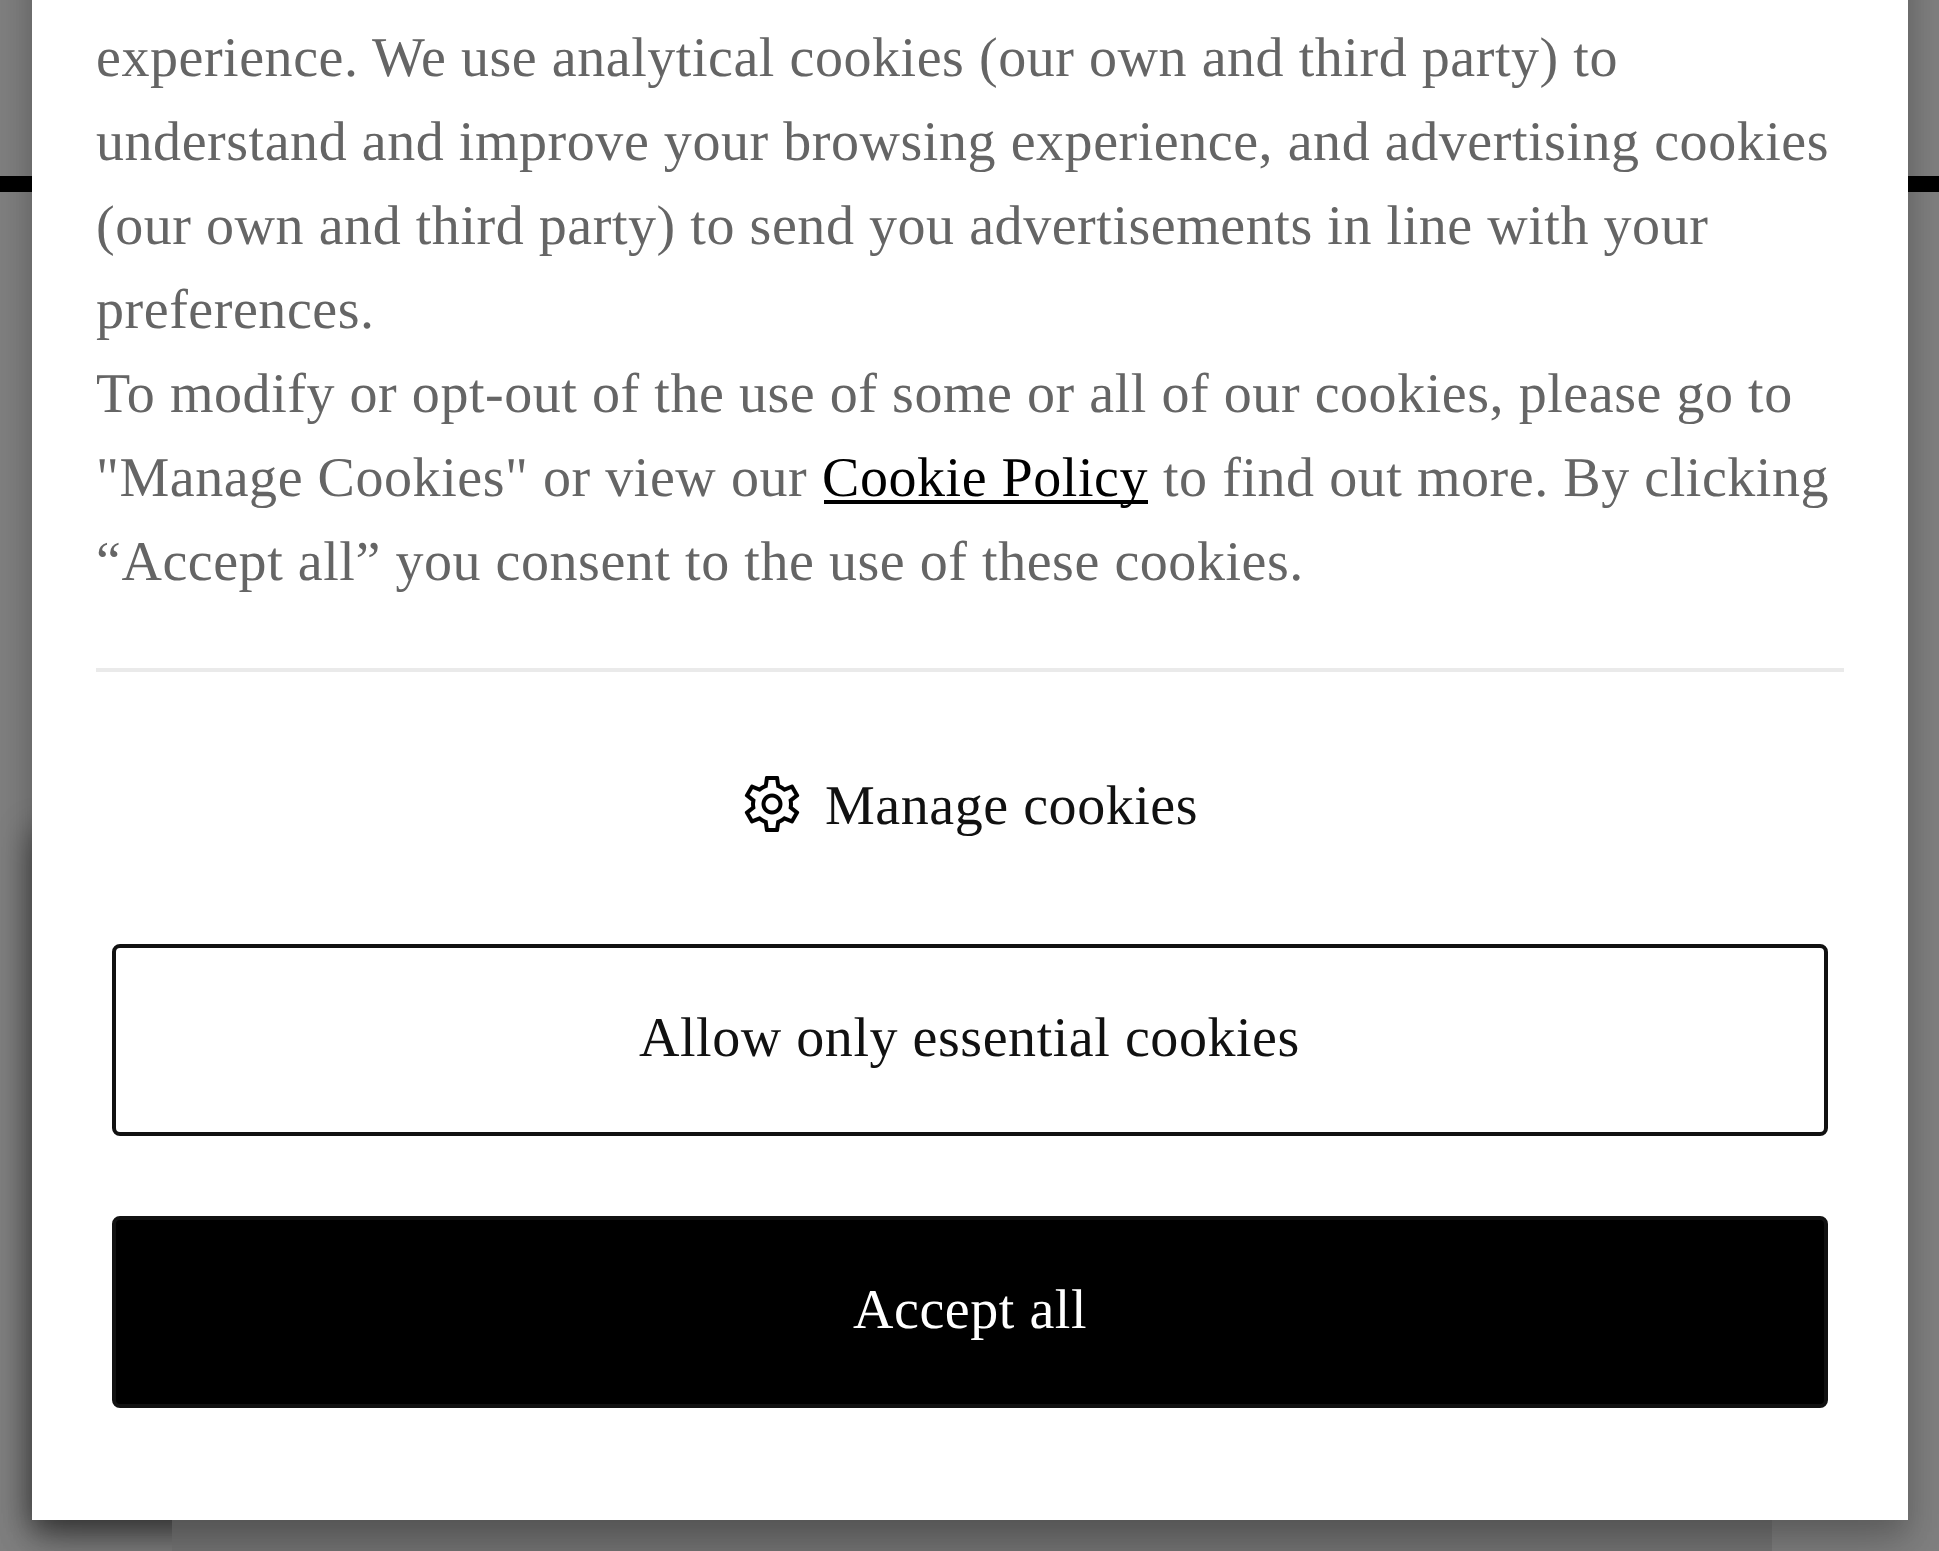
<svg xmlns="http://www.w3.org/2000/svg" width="1939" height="1551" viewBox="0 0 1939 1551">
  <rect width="100%" height="100%" fill="rgb(128,128,128)"/>
  <rect x="0" y="176" width="1939" height="16" fill="rgb(0,0,0)"/>
  <rect x="32" y="832" width="1368" height="696" fill="rgba(0,0,0,0.5)" filter="blur(16px)"/>
  <rect x="172" y="1520" width="1600" height="31" fill="rgb(117,117,117)"/>
  <rect x="32" y="-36" width="1876" height="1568" fill="rgba(0,0,0,0.12)" filter="blur(12px)"/>
  <rect x="32" y="-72" width="1876" height="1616" fill="rgba(0,0,0,0.2)" filter="blur(24px)"/>
  <rect x="32" y="0" width="1876" height="1520" fill="rgb(255,255,255)"/>
  <rect x="96" y="668" width="1748" height="4" fill="rgb(234,234,234)"/>
  <g font-family="Liberation Serif" font-size="56" letter-spacing="0.55" fill="rgb(101,101,101)">
    <text>
      <tspan x="96" y="76">experience. We use analytical cookies (our own and third party) to</tspan>
      <tspan x="96" y="160">understand and improve your browsing experience, and advertising cookies</tspan>
      <tspan x="96" y="244">(our own and third party) to send you advertisements in line with your</tspan>
      <tspan x="96" y="328">preferences.</tspan>
      <tspan x="96" y="412">To modify or opt-out of the use of some or all of our cookies, please go to</tspan>
      <tspan x="96" y="496">"Manage Cookies" or view our</tspan>
    </text>
  </g>
  <rect x="824" y="500" width="324" height="4" fill="rgb(0,0,0)"/>
  <text x="822" y="496" font-family="Liberation Serif" font-size="56" letter-spacing="0.55" fill="rgb(0,0,0)">Cookie Policy</text>
  <g font-family="Liberation Serif" font-size="56" letter-spacing="0.55" fill="rgb(101,101,101)">
    <text x="1163" y="496">to find out more. By clicking</text>
    <text x="96" y="580">“Accept all” you consent to the use of these cookies.</text>
  </g>
  <image x="744" y="776" width="56" height="56" href="pic1.png"/>
  <text x="825" y="824" font-family="Liberation Serif" font-size="56" letter-spacing="0.55" fill="rgb(17,17,17)">Manage cookies</text>
  <rect x="114" y="946" width="1712" height="188" rx="6" fill="none" stroke="rgb(17,17,17)" stroke-width="4"/>
  <text x="639" y="1056" font-family="Liberation Serif" font-size="56" letter-spacing="0.55" fill="rgb(17,17,17)">Allow only essential cookies</text>
  <rect x="114" y="1218" width="1712" height="188" rx="6" fill="rgb(0,0,0)" stroke="rgb(17,17,17)" stroke-width="4"/>
  <text x="853" y="1328" font-family="Liberation Serif" font-size="56" letter-spacing="0.55" fill="rgb(255,255,255)">Accept all</text>
</svg>
